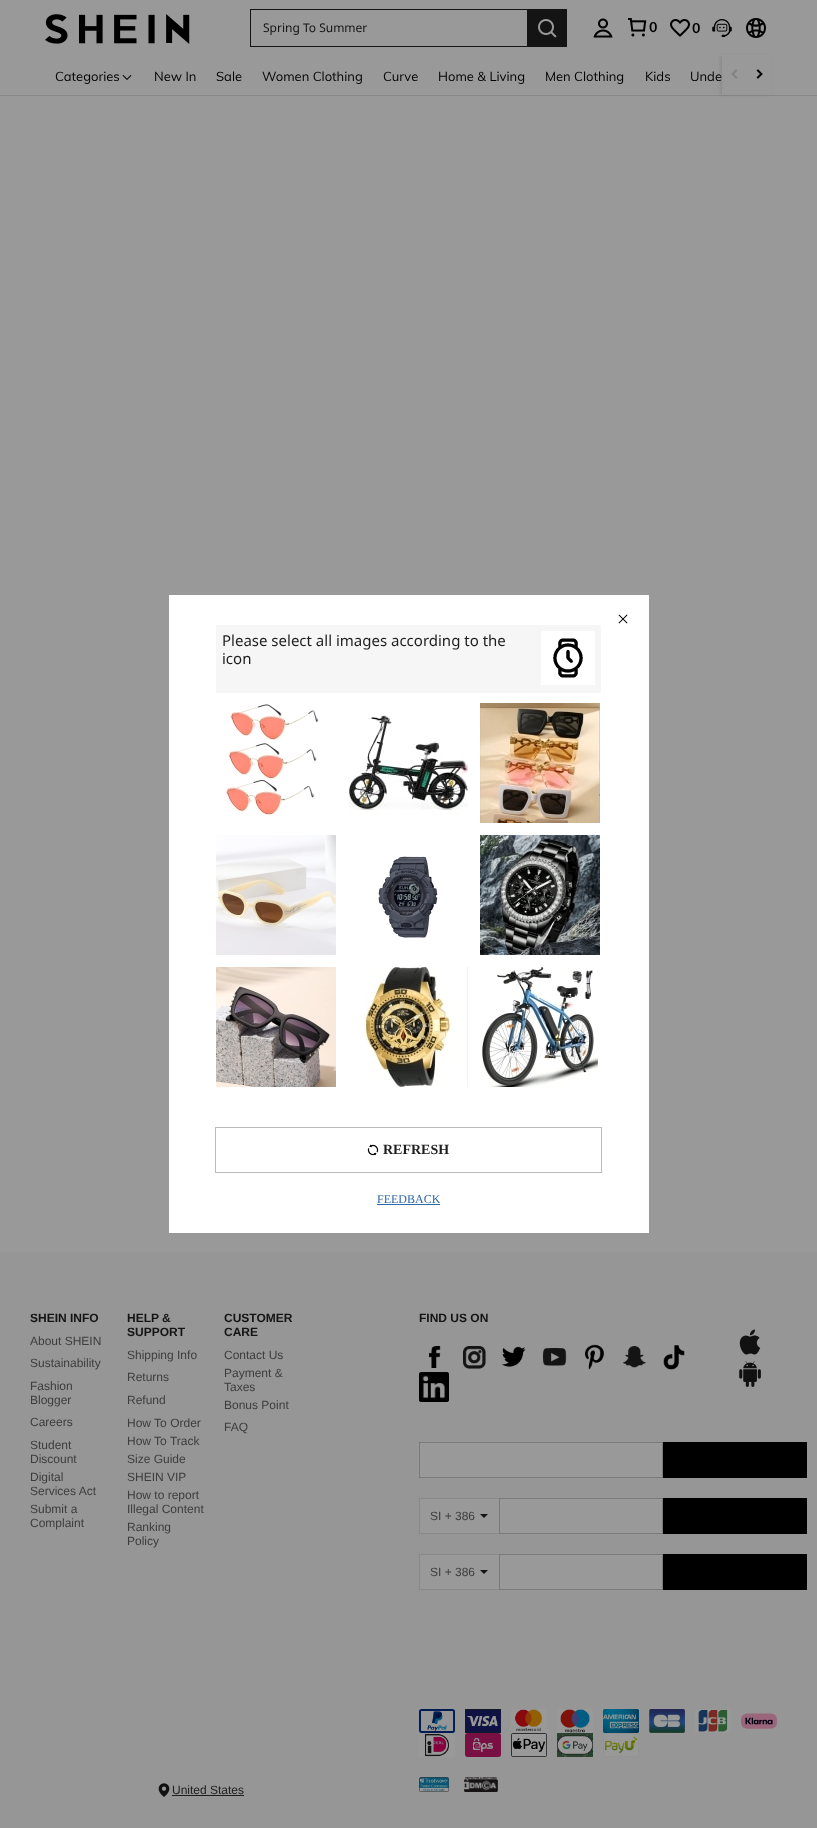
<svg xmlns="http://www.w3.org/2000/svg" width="817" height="1828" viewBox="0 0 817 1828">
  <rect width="100%" height="100%" fill="rgb(153,153,153)"/>
  <rect x="0" y="95" width="817" height="1" fill="rgb(137,137,137)"/>
  <rect x="720" y="56" width="50" height="39" fill="rgba(0,0,0,0.08)" filter="blur(1.5px)"/>
  <rect x="720" y="55" width="50" height="1" fill="rgb(153,153,153)"/>
  <image x="45" y="14" width="145" height="30" href="pic1.png"/>
  <rect x="250" y="9" width="277" height="1" fill="rgb(20,20,20)"/>
  <rect x="250" y="46" width="277" height="1" fill="rgb(20,20,20)"/>
  <rect x="250" y="9" width="1" height="38" fill="rgb(20,20,20)"/>
  <text x="263" y="32" font-family="Noto Sans" font-size="12" fill="rgb(20,20,20)">Spring To Summer</text>
  <rect x="527" y="9" width="40" height="38" fill="rgb(20,20,20)"/>
  <image x="538" y="19" width="19" height="19" href="pic2.png"/>
  <image x="593" y="18" width="20" height="20" href="pic3.png"/>
  <image x="628" y="18" width="19" height="19" href="pic4.png"/>
  <text x="649" y="32" font-family="Muli" font-size="14" font-weight="bold" fill="rgb(0,0,0)">0</text>
  <image x="670" y="19" width="20" height="18" href="pic5.png"/>
  <text x="692" y="33" font-family="Muli" font-size="14" font-weight="bold" fill="rgb(0,0,0)">0</text>
  <image x="712" y="19" width="20" height="19" href="pic6.png"/>
  <image x="746" y="18" width="20" height="20" href="pic7.png"/>
  <text x="55" y="81" font-family="Muli" font-size="13" fill="rgb(0,0,0)">Categories</text>
  <image x="122" y="75" width="10" height="5" href="pic8.png"/>
  <g font-family="Muli" font-size="13" fill="rgb(0,0,0)">
    <text x="154" y="81">New In</text>
    <text x="216" y="81">Sale</text>
    <text x="262" y="81">Women Clothing</text>
    <text x="383" y="81">Curve</text>
    <text x="438" y="81">Home &amp; Living</text>
    <text x="545" y="81">Men Clothing</text>
    <text x="645" y="81">Kids</text>
    <text x="690" y="81">Unde</text>
  </g>
  <rect x="722" y="56" width="49" height="39" fill="rgb(153,153,153)"/>
  <image x="731" y="69" width="7" height="10" href="pic9.png"/>
  <image x="756" y="69" width="7" height="10" href="pic10.png"/>
  <rect x="0" y="1252" width="817" height="576" fill="rgb(150,150,150)"/>
  <text x="30" y="1322" font-family="Liberation Sans" font-size="12" font-weight="bold" fill="rgb(20,20,20)">SHEIN INFO</text>
  <g font-family="Liberation Sans" font-size="12" fill="rgb(61,61,61)">
    <text>
      <tspan x="30" y="1345">About SHEIN</tspan>
      <tspan x="30" y="1367">Sustainability</tspan>
      <tspan x="30" y="1390">Fashion</tspan>
      <tspan x="30" y="1404">Blogger</tspan>
      <tspan x="30" y="1426">Careers</tspan>
      <tspan x="30" y="1449">Student</tspan>
      <tspan x="30" y="1463">Discount</tspan>
      <tspan x="30" y="1481">Digital</tspan>
      <tspan x="30" y="1495">Services Act</tspan>
      <tspan x="30" y="1513">Submit a</tspan>
      <tspan x="30" y="1527">Complaint</tspan>
    </text>
  </g>
  <g font-family="Liberation Sans" font-size="12" font-weight="bold" fill="rgb(20,20,20)">
    <text>
      <tspan x="127" y="1322">HELP &amp;</tspan>
      <tspan x="127" y="1336">SUPPORT</tspan>
    </text>
  </g>
  <g font-family="Liberation Sans" font-size="12" fill="rgb(61,61,61)">
    <text>
      <tspan x="127" y="1359">Shipping Info</tspan>
      <tspan x="127" y="1381">Returns</tspan>
      <tspan x="127" y="1404">Refund</tspan>
      <tspan x="127" y="1427">How To Order</tspan>
      <tspan x="127" y="1445">How To Track</tspan>
      <tspan x="127" y="1463">Size Guide</tspan>
      <tspan x="127" y="1481">SHEIN VIP</tspan>
      <tspan x="127" y="1499">How to report</tspan>
      <tspan x="127" y="1513">Illegal Content</tspan>
      <tspan x="127" y="1531">Ranking</tspan>
      <tspan x="127" y="1545">Policy</tspan>
    </text>
  </g>
  <g font-family="Liberation Sans" font-size="12" font-weight="bold" fill="rgb(20,20,20)">
    <text>
      <tspan x="224" y="1322">CUSTOMER</tspan>
      <tspan x="224" y="1336">CARE</tspan>
    </text>
  </g>
  <g font-family="Liberation Sans" font-size="12" fill="rgb(61,61,61)">
    <text>
      <tspan x="224" y="1359">Contact Us</tspan>
      <tspan x="224" y="1377">Payment &amp;</tspan>
      <tspan x="224" y="1391">Taxes</tspan>
      <tspan x="224" y="1409">Bonus Point</tspan>
      <tspan x="224" y="1431">FAQ</tspan>
    </text>
  </g>
  <text x="419" y="1322" font-family="Liberation Sans" font-size="12" font-weight="bold" fill="rgb(20,20,20)">FIND US ON</text>
  <image x="429" y="1346" width="12" height="22" href="pic11.png"/>
  <image x="463" y="1346" width="23" height="23" href="pic12.png"/>
  <image x="501" y="1346" width="25" height="21" href="pic13.png"/>
  <image x="543" y="1348" width="24" height="18" href="pic14.png"/>
  <image x="585" y="1344" width="20" height="26" href="pic15.png"/>
  <image x="623" y="1346" width="23" height="22" href="pic16.png"/>
  <image x="663" y="1345" width="22" height="25" href="pic17.png"/>
  <image x="419" y="1372" width="30" height="30" href="pic18.png"/>
  <image x="739" y="1329" width="22" height="26" href="pic19.png"/>
  <image x="739" y="1361" width="22" height="26" href="pic20.png"/>
  <rect x="419.5" y="1442.5" width="243" height="35" fill="rgb(153,153,153)" stroke="rgb(122,122,122)"/>
  <rect x="663" y="1442" width="144" height="36" fill="rgb(0,0,0)"/>
  <rect x="420" y="1499" width="79" height="34" fill="rgb(153,153,153)"/>
  <rect x="419" y="1498" width="80" height="1" fill="rgb(137,137,137)"/>
  <rect x="419" y="1533" width="80" height="1" fill="rgb(137,137,137)"/>
  <rect x="419" y="1498" width="1" height="36" fill="rgb(137,137,137)"/>
  <text x="430" y="1520" font-family="Liberation Sans" font-size="12" fill="rgb(61,61,61)">SI + 386</text>
  <path d="M480 1514H488L484 1518Z" fill="rgb(20,20,20)"/>
  <rect x="499.5" y="1498.5" width="163" height="35" fill="rgb(153,153,153)" stroke="rgb(122,122,122)"/>
  <rect x="663" y="1498" width="144" height="36" fill="rgb(0,0,0)"/>
  <rect x="420" y="1555" width="79" height="34" fill="rgb(153,153,153)"/>
  <rect x="419" y="1554" width="80" height="1" fill="rgb(137,137,137)"/>
  <rect x="419" y="1589" width="80" height="1" fill="rgb(137,137,137)"/>
  <rect x="419" y="1554" width="1" height="36" fill="rgb(137,137,137)"/>
  <text x="430" y="1576" font-family="Liberation Sans" font-size="12" fill="rgb(61,61,61)">SI + 386</text>
  <path d="M480 1570H488L484 1574Z" fill="rgb(20,20,20)"/>
  <rect x="499.5" y="1554.5" width="163" height="35" fill="rgb(153,153,153)" stroke="rgb(122,122,122)"/>
  <rect x="663" y="1554" width="144" height="36" fill="rgb(0,0,0)"/>
  <image x="419" y="1709" width="36" height="24" href="pic21.png"/>
  <image x="465" y="1709" width="36" height="24" href="pic22.png"/>
  <image x="511" y="1709" width="36" height="24" href="pic23.png"/>
  <image x="557" y="1709" width="36" height="24" href="pic24.png"/>
  <image x="603" y="1709" width="36" height="24" href="pic25.png"/>
  <image x="649" y="1709" width="36" height="24" href="pic26.png"/>
  <image x="695" y="1709" width="36" height="24" href="pic27.png"/>
  <image x="741" y="1713" width="36" height="16" href="pic28.png"/>
  <image x="419" y="1733" width="36" height="24" href="pic29.png"/>
  <image x="465" y="1733" width="36" height="24" href="pic30.png"/>
  <image x="511" y="1733" width="36" height="24" href="pic31.png"/>
  <image x="557" y="1733" width="36" height="24" href="pic32.png"/>
  <image x="603" y="1733" width="36" height="24" href="pic33.png"/>
  <image x="158" y="1783" width="12" height="14" href="pic34.png"/>
  <text x="172" y="1794" font-family="Liberation Sans" font-size="12" fill="rgb(30,30,30)">United States</text>
  <rect x="172" y="1795" width="72" height="1" fill="rgb(30,30,30)"/>
  <image x="419" y="1777" width="30" height="15" href="pic35.png"/>
  <image x="464" y="1777" width="34" height="15" href="pic36.png"/>
  <rect x="169" y="595" width="480" height="638" fill="rgba(0,0,0,0.3)" filter="blur(0.5px)"/>
  <rect x="169" y="595" width="480" height="638" fill="rgb(255,255,255)"/>
  <image x="618" y="614" width="10" height="10" href="pic37.png"/>
  <rect x="216" y="625" width="385" height="68" fill="rgb(246,246,246)"/>
  <g font-family="Noto Sans" font-size="15" fill="rgb(30,30,30)">
    <text>
      <tspan x="222" y="646">Please select all images according to the</tspan>
      <tspan x="222" y="664">icon</tspan>
    </text>
  </g>
  <rect x="541" y="631" width="54" height="54" fill="rgb(255,255,255)"/>
  <image x="553" y="638" width="30" height="40" href="pic38.png"/>
  <image x="225" y="704" width="94" height="112" href="pic39.png"/>
  <image x="348" y="713" width="120" height="102" href="pic40.png"/>
  <image x="480" y="703" width="120" height="120" href="pic41.png"/>
  <image x="216" y="835" width="120" height="120" href="pic42.png"/>
  <image x="378" y="856" width="60" height="82" href="pic43.png"/>
  <image x="480" y="835" width="120" height="120" href="pic44.png"/>
  <image x="216" y="967" width="120" height="120" href="pic45.png"/>
  <image x="364" y="967" width="104" height="120" href="pic46.png"/>
  <image x="481" y="967" width="117" height="120" href="pic47.png"/>
  <rect x="215.5" y="1127.5" width="386" height="45" fill="none" stroke="rgb(187,187,187)"/>
  <image x="367" y="1144" width="12" height="12" href="pic48.png"/>
  <text x="383" y="1154" font-family="Liberation Serif" font-size="14" font-weight="bold" fill="rgb(30,30,30)">REFRESH</text>
  <text x="377" y="1203" font-family="Liberation Serif" font-size="12" fill="rgb(45,104,168)">FEEDBACK</text>
  <rect x="377" y="1204" width="63" height="1" fill="rgb(45,104,168)"/>
</svg>
